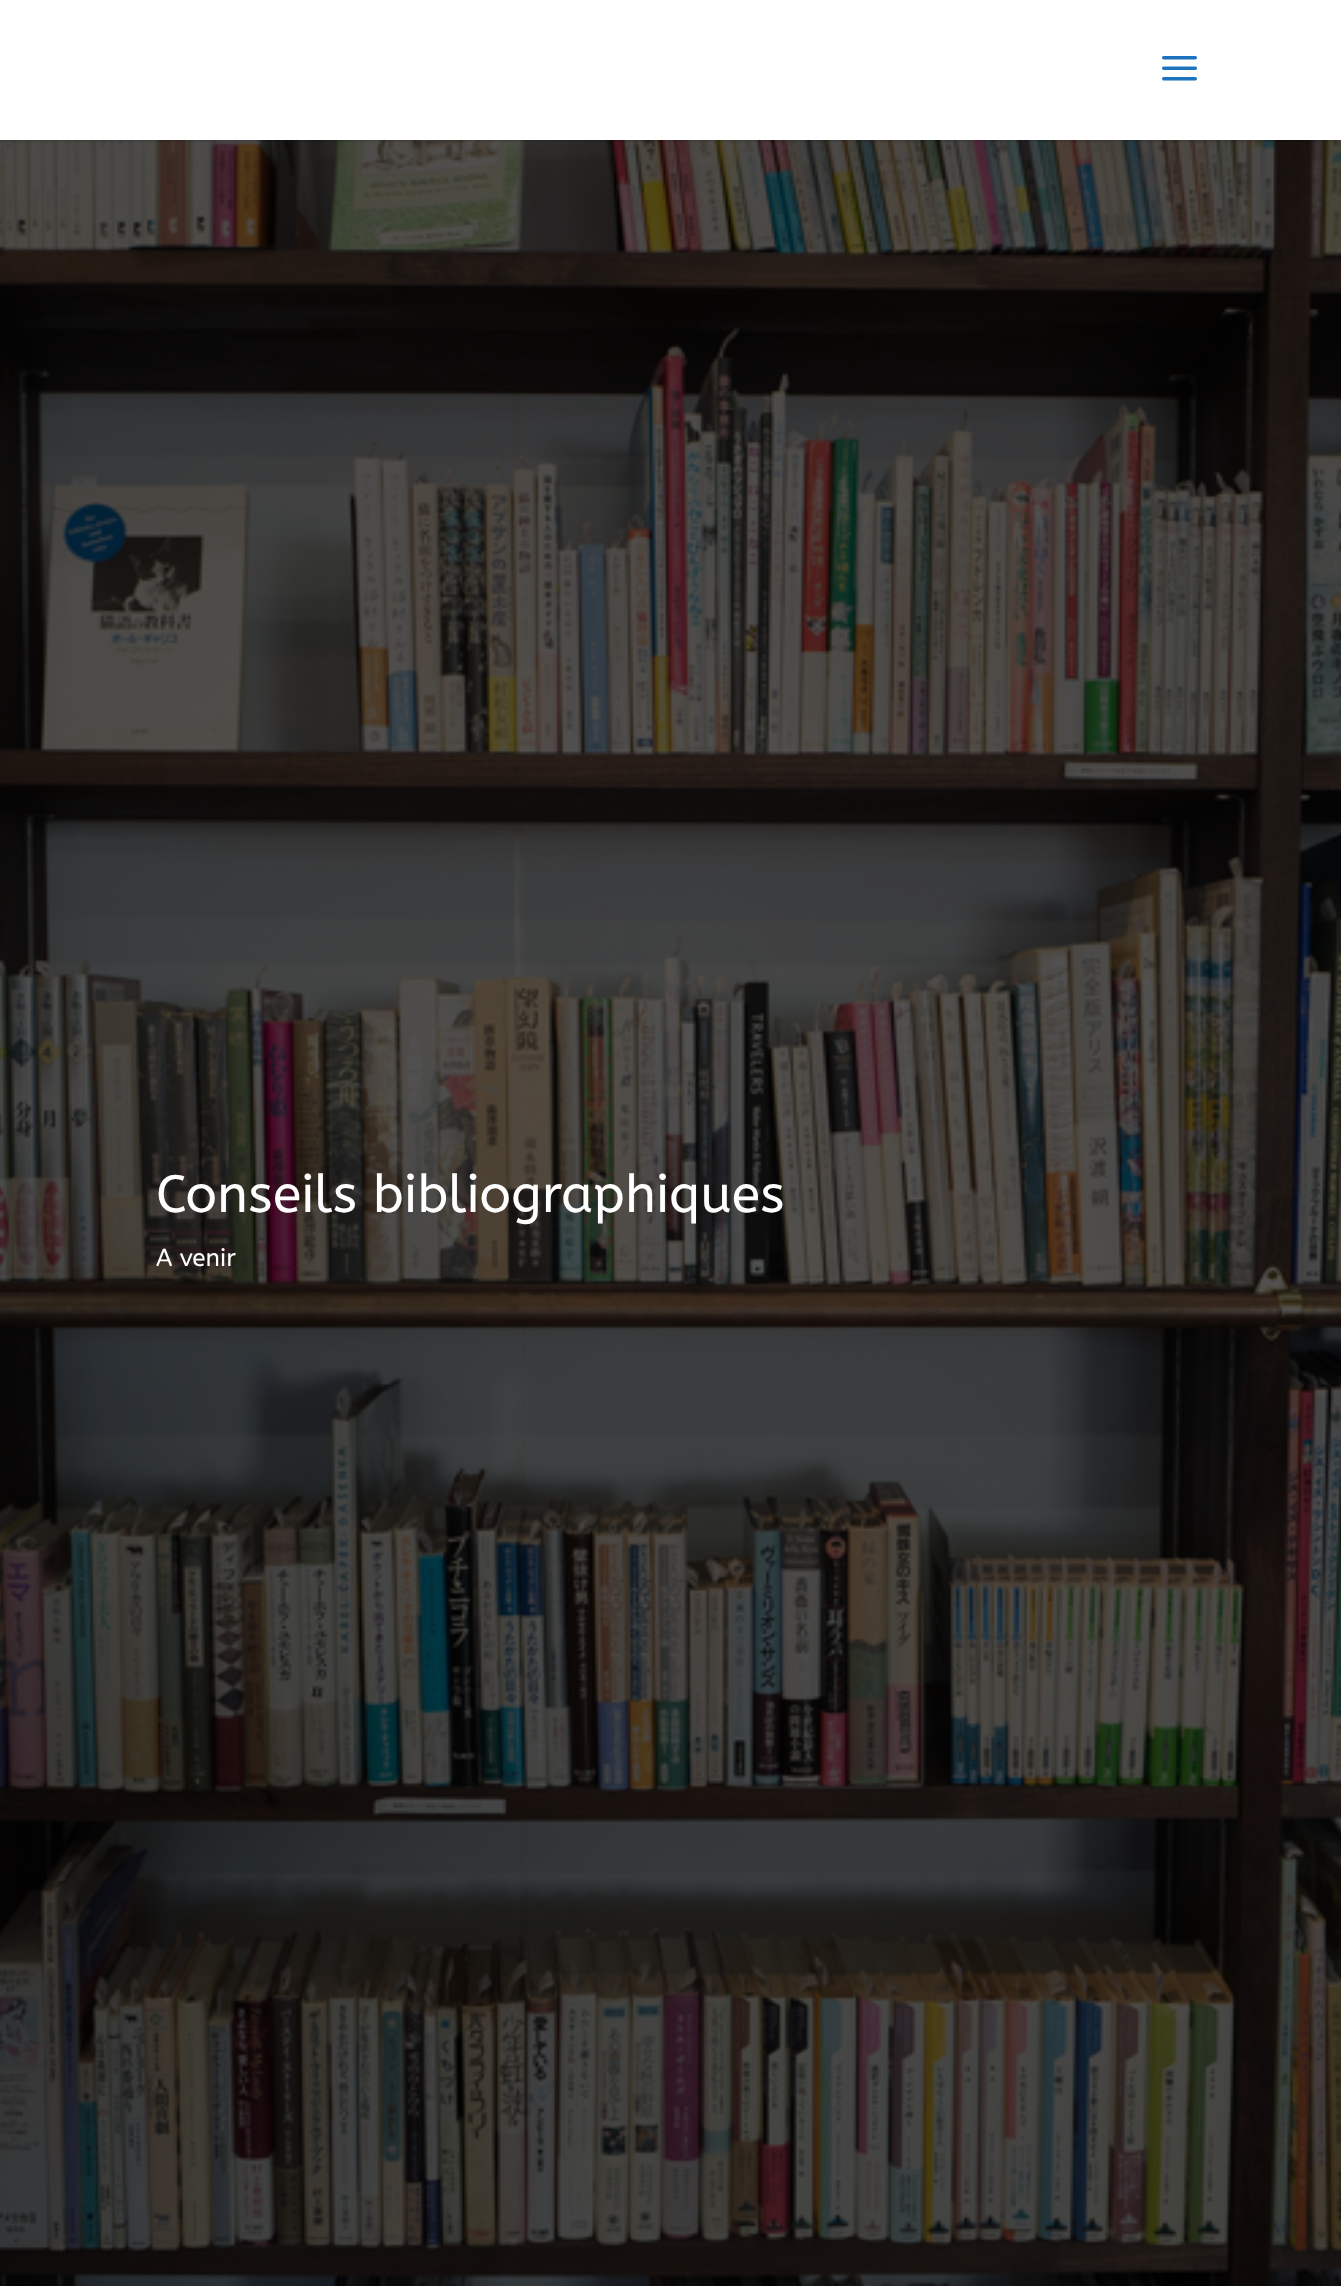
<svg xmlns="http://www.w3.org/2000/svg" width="1341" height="2286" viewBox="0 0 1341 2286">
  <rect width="100%" height="100%" fill="rgb(255,255,255)"/>
  <image x="0" y="140" width="1341" height="2146" href="pic2.png"/>
  <rect x="0" y="140" width="1341" height="2" fill="rgba(0,0,0,0.1)"/>
  <image x="1162" y="56" width="35" height="25" href="pic1.png"/>
  <text x="156" y="1212" font-family="ABeeZee" font-size="52.5" fill="rgb(255,255,255)">Conseils bibliographiques</text>
  <text x="156" y="1266" font-family="ABeeZee" font-size="24.5" fill="rgb(255,255,255)">A venir</text>
</svg>
